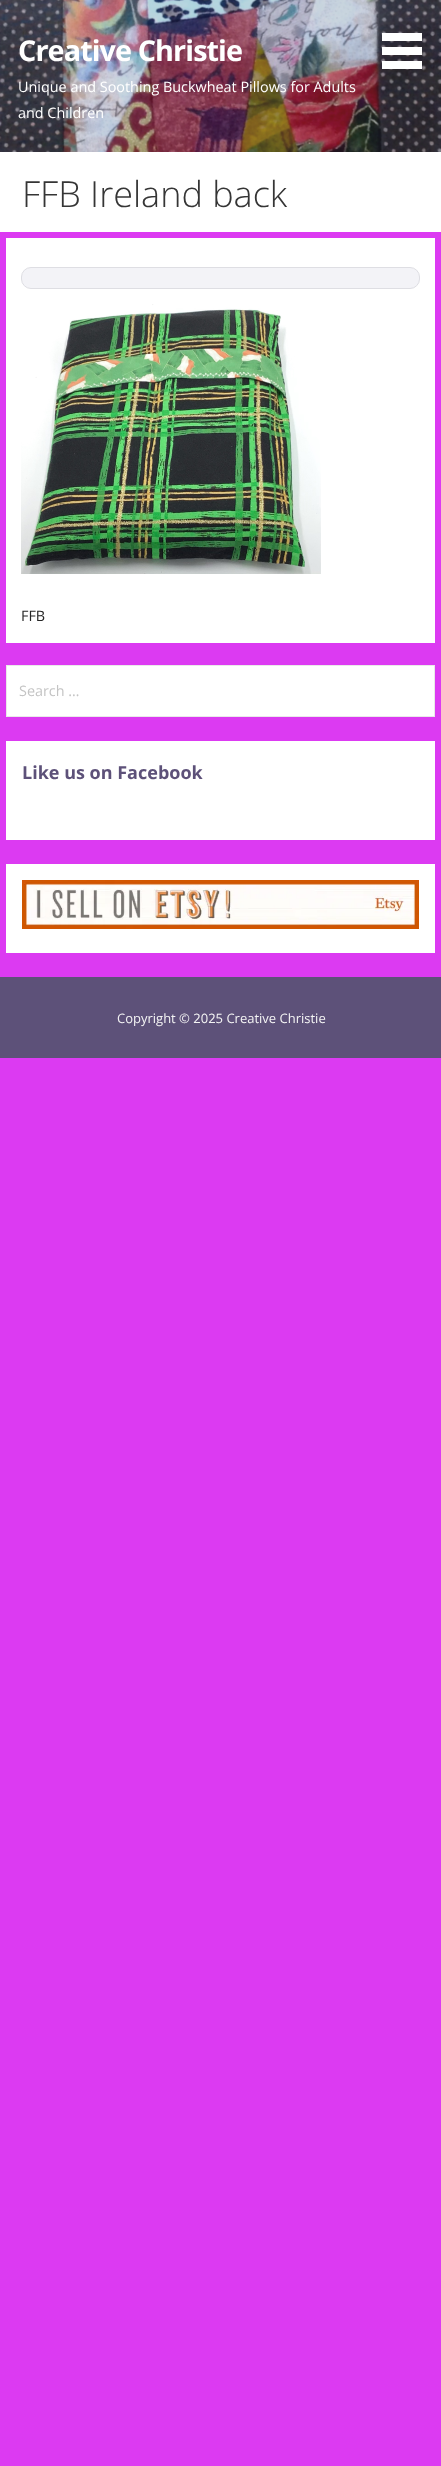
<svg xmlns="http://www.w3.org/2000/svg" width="441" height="2466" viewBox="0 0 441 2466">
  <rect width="100%" height="100%" fill="rgb(220,58,242)"/>
  <image x="0" y="0" width="441" height="152" href="pic1.png"/>
  <text x="18" y="61" font-family="Open Sans" font-size="28.75" font-weight="bold" letter-spacing="-0.9" fill="rgb(255,255,255)">Creative Christie</text>
  <g font-family="Open Sans" font-size="14.4" fill="rgb(255,255,255)">
    <text>
      <tspan x="18" y="92">Unique and Soothing Buckwheat Pillows for Adults</tspan>
      <tspan x="18" y="118">and Children</tspan>
    </text>
  </g>
  <rect x="382" y="33" width="40" height="8" fill="rgb(255,255,255)"/>
  <rect x="382" y="47" width="40" height="8" fill="rgb(255,255,255)"/>
  <rect x="382" y="61" width="40" height="8" fill="rgb(255,255,255)"/>
  <rect x="0" y="152" width="441" height="80" fill="rgb(255,255,255)"/>
  <text x="22" y="207" font-family="Open Sans" font-size="36" font-weight="300" fill="rgb(53,53,53)">FFB Ireland back</text>
  <rect x="6" y="238" width="429" height="405" fill="rgb(255,255,255)"/>
  <rect x="21.5" y="267.5" width="398" height="21" rx="9.5" fill="rgb(243,243,247)" stroke="rgb(222,222,227)"/>
  <image x="21" y="304" width="300" height="270" href="pic2.png"/>
  <text x="21" y="621" font-family="Open Sans" font-size="14.4" fill="rgb(37,37,37)">FFB</text>
  <rect x="6.5" y="665.5" width="428" height="51" fill="rgb(255,255,255)" stroke="rgb(233,233,233)"/>
  <text x="19" y="696" font-family="Open Sans" font-size="14.4" fill="rgb(196,196,196)">Search …</text>
  <rect x="6" y="741" width="429" height="99" fill="rgb(255,255,255)"/>
  <text x="22" y="779" font-family="Open Sans" font-size="18" font-weight="bold" fill="rgb(93,81,121)">Like us on Facebook</text>
  <rect x="6" y="864" width="429" height="89" fill="rgb(255,255,255)"/>
  <image x="22" y="880" width="397" height="49" href="pic3.png"/>
  <rect x="0" y="977" width="441" height="81" fill="rgb(93,81,121)"/>
  <text x="117" y="1023" font-family="Open Sans" font-size="13" fill="rgb(244,244,244)">Copyright © 2025 Creative Christie</text>
</svg>
